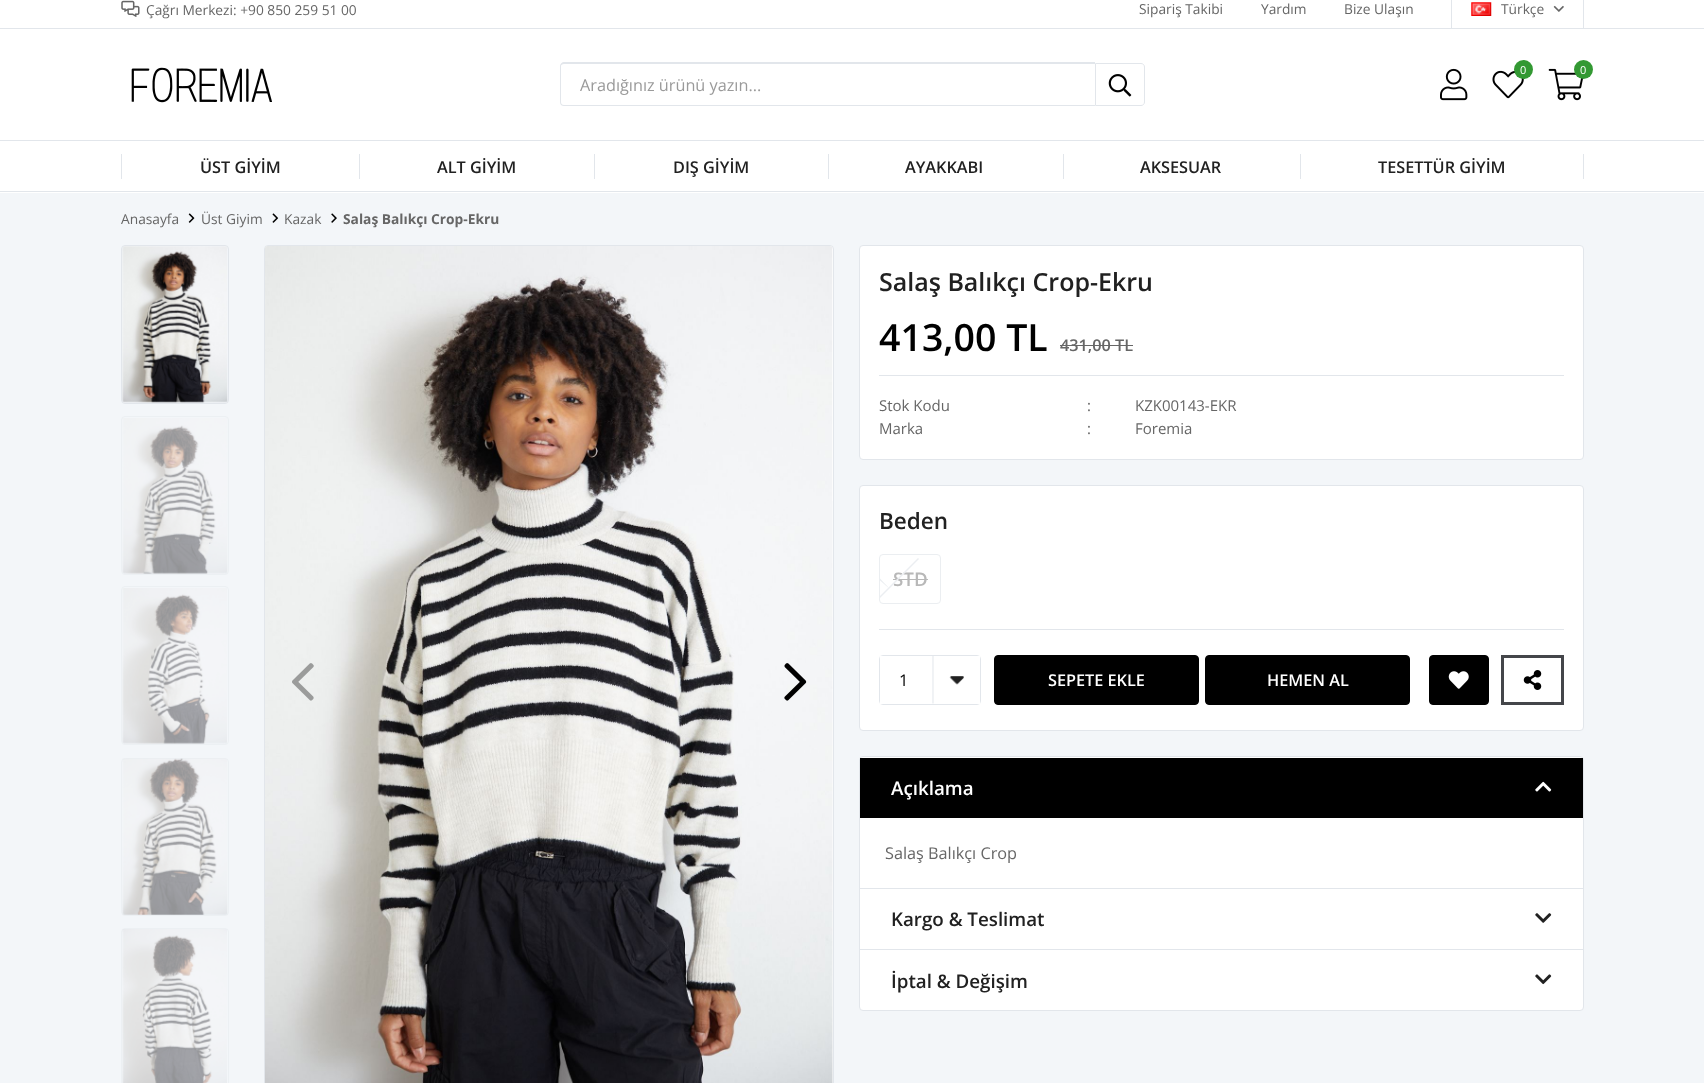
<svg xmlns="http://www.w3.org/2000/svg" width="1704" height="1083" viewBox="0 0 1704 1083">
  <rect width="100%" height="100%" fill="rgb(243,246,249)"/>
  <rect x="0" y="0" width="1704" height="193" fill="rgb(255,255,255)"/>
  <rect x="0" y="28" width="1704" height="1" fill="rgb(226,230,235)"/>
  <image x="121" y="0" width="19" height="17" href="pic1.png"/>
  <g font-family="Open Sans" font-size="13.75" fill="rgb(102,102,102)">
    <text x="146" y="15">Çağrı Merkezi: +90 850 259 51 00</text>
    <text x="1139" y="14">Sipariş Takibi</text>
    <text x="1261" y="14">Yardım</text>
    <text x="1344" y="14">Bize Ulaşın</text>
  </g>
  <rect x="1583" y="0" width="1" height="29" fill="rgb(226,230,235)"/>
  <rect x="1451" y="0" width="1" height="29" fill="rgb(226,230,235)"/>
  <image x="1471" y="2" width="21" height="14" href="pic2.png"/>
  <text x="1501" y="14" font-family="Open Sans" font-size="13.75" fill="rgb(102,102,102)">Türkçe</text>
  <image x="1553" y="5" width="11" height="7" href="pic3.png"/>
  <rect x="0" y="140" width="1704" height="1" fill="rgb(226,230,235)"/>
  <image x="131" y="67" width="141" height="36" href="pic4.png"/>
  <path d="M564 62H1095V106H564C562 106 560 105 560 102V66C560 64 562 62 564 62ZM564 64H1095V105H564C562 105 561 104 561 102V66C561 65 562 64 564 64Z" fill="rgb(226,230,235)" fill-rule="evenodd"/>
  <text x="580" y="91" font-family="Open Sans" font-size="16.25" fill="rgb(154,154,154)">Aradığınız ürünü yazın...</text>
  <path d="M1095.5 63.5H1141C1143 63.5 1144.5 65 1144.5 67V102C1144.5 104 1143 105.5 1141 105.5H1095.5Z" fill="none" stroke="rgb(226,230,235)"/>
  <image x="1108" y="74" width="24" height="23" href="pic5.png"/>
  <image x="1440" y="68" width="28" height="33" href="pic6.png"/>
  <image x="1492" y="70" width="32" height="29" href="pic7.png"/>
  <circle cx="1523.5" cy="69.5" r="9.5" fill="rgb(51,153,51)"/>
  <text x="1520" y="74" font-family="Open Sans" font-size="11" fill="rgb(255,255,255)">0</text>
  <image x="1548" y="68" width="36" height="33" href="pic8.png"/>
  <circle cx="1583.5" cy="69.5" r="9.5" fill="rgb(51,153,51)"/>
  <text x="1580" y="74" font-family="Open Sans" font-size="11" fill="rgb(255,255,255)">0</text>
  <rect x="0" y="191" width="1704" height="1" fill="rgb(226,230,235)"/>
  <rect x="121" y="154" width="1" height="25" fill="rgb(226,230,235)"/>
  <text x="200" y="173" font-family="Open Sans" font-size="16.25" font-weight="600" fill="rgb(33,33,33)">ÜST GİYİM</text>
  <rect x="359" y="154" width="1" height="25" fill="rgb(226,230,235)"/>
  <text x="437" y="173" font-family="Open Sans" font-size="16.25" font-weight="600" fill="rgb(33,33,33)">ALT GİYİM</text>
  <rect x="594" y="154" width="1" height="25" fill="rgb(226,230,235)"/>
  <text x="673" y="173" font-family="Open Sans" font-size="16.25" font-weight="600" fill="rgb(33,33,33)">DIŞ GİYİM</text>
  <rect x="828" y="154" width="1" height="25" fill="rgb(226,230,235)"/>
  <text x="905" y="173" font-family="Open Sans" font-size="16.25" font-weight="600" fill="rgb(33,33,33)">AYAKKABI</text>
  <rect x="1063" y="154" width="1" height="25" fill="rgb(226,230,235)"/>
  <text x="1140" y="173" font-family="Open Sans" font-size="16.25" font-weight="600" fill="rgb(33,33,33)">AKSESUAR</text>
  <rect x="1300" y="154" width="1" height="25" fill="rgb(226,230,235)"/>
  <text x="1378" y="173" font-family="Open Sans" font-size="16.25" font-weight="600" fill="rgb(33,33,33)">TESETTÜR GİYİM</text>
  <rect x="1583" y="154" width="1" height="25" fill="rgb(226,230,235)"/>
  <text x="121" y="224" font-family="Open Sans" font-size="13.75" fill="rgb(102,102,102)">Anasayfa</text>
  <image x="188" y="213" width="7" height="10" href="pic9.png"/>
  <text x="201" y="224" font-family="Open Sans" font-size="13.75" fill="rgb(102,102,102)">Üst Giyim</text>
  <image x="272" y="213" width="7" height="10" href="pic10.png"/>
  <text x="284" y="224" font-family="Open Sans" font-size="13.75" fill="rgb(102,102,102)">Kazak</text>
  <image x="331" y="213" width="6" height="10" href="pic11.png"/>
  <text x="343" y="224" font-family="Open Sans" font-size="13.75" font-weight="bold" fill="rgb(102,102,102)">Salaş Balıkçı Crop-Ekru</text>
  <rect x="121.5" y="245.5" width="107" height="158" rx="3.5" fill="none" stroke="rgb(226,230,235)"/>
  <image x="122" y="246" width="106" height="157" href="pic12.png"/>
  <rect x="121.5" y="416.5" width="107" height="158" rx="3.5" fill="none" stroke="rgb(236,240,243)"/>
  <image x="122" y="418" width="106" height="156" href="pic13.png"/>
  <rect x="121.5" y="586.5" width="107" height="158" rx="3.5" fill="none" stroke="rgb(236,240,243)"/>
  <image x="122" y="588" width="105" height="156" href="pic14.png"/>
  <rect x="121.5" y="758.5" width="107" height="157" rx="3.5" fill="none" stroke="rgb(236,240,243)"/>
  <image x="122" y="758" width="106" height="157" href="pic15.png"/>
  <rect x="121.5" y="928.5" width="107" height="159" rx="3.5" fill="none" stroke="rgb(236,240,243)"/>
  <image x="122" y="929" width="105" height="154" href="pic16.png"/>
  <rect x="264.5" y="245.5" width="569" height="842" rx="3.5" fill="rgb(255,255,255)" stroke="rgb(226,230,235)"/>
  <image x="265" y="246" width="568" height="837" href="pic17.png"/>
  <image x="292" y="663" width="22" height="38" href="pic18.png"/>
  <image x="784" y="663" width="23" height="38" href="pic19.png"/>
  <rect x="859.5" y="245.5" width="724" height="214" rx="3.5" fill="rgb(255,255,255)" stroke="rgb(226,230,235)"/>
  <text x="879" y="291" font-family="Open Sans" font-size="25" font-weight="600" fill="rgb(33,33,33)">Salaş Balıkçı Crop-Ekru</text>
  <rect x="879" y="375" width="685" height="1" fill="rgb(226,230,235)"/>
  <text x="879" y="351" font-family="Open Sans" font-size="37.5" font-weight="600" fill="rgb(0,0,0)">413,00 TL</text>
  <text x="1060" y="351" font-family="Open Sans" font-size="16.25" font-weight="600" fill="rgb(102,102,102)">431,00 TL</text>
  <rect x="1060" y="345" width="73" height="1" fill="rgb(102,102,102)"/>
  <g font-family="Open Sans" font-size="15" fill="rgb(102,102,102)">
    <text x="879" y="411">Stok Kodu</text>
    <text x="1087" y="411">:</text>
    <text x="1135" y="411">KZK00143-EKR</text>
    <text x="879" y="434">Marka</text>
    <text x="1087" y="434">:</text>
    <text x="1135" y="434">Foremia</text>
  </g>
  <rect x="859.5" y="485.5" width="724" height="245" rx="3.5" fill="rgb(255,255,255)" stroke="rgb(226,230,235)"/>
  <rect x="879" y="629" width="685" height="1" fill="rgb(226,230,235)"/>
  <text x="879" y="529" font-family="Open Sans" font-size="22.5" font-weight="600" fill="rgb(33,33,33)">Beden</text>
  <rect x="879.5" y="554.5" width="61" height="49" rx="3.5" fill="none" stroke="rgb(235,238,241)"/>
  <path d="M880.5 579L889 588L888 587.5L880 580.5V578.5Z" fill="rgb(235,238,241)"/>
  <text x="893" y="586" font-family="Open Sans" font-size="18.75" font-weight="600" fill="rgb(184,184,184)">STD</text>
  <rect x="893" y="579" width="35" height="1" fill="rgb(184,184,184)"/>
  <path d="M880 598V596L918 558L919 559Z" fill="rgb(235,238,241)"/>
  <rect x="879.5" y="655.5" width="101" height="49" rx="3.5" fill="none" stroke="rgb(226,230,235)"/>
  <rect x="880" y="656" width="100" height="48" fill="rgb(255,255,255)"/>
  <image x="932" y="656" width="32" height="48" href="pic20.png"/>
  <text x="899" y="686" font-family="Open Sans" font-size="16.25" fill="rgb(0,0,0)">1</text>
  <rect x="994.5" y="655.5" width="204" height="49" rx="3.5" fill="rgb(0,0,0)" stroke="rgb(0,0,0)"/>
  <text x="1048" y="686" font-family="Open Sans" font-size="16.25" font-weight="600" fill="rgb(255,255,255)">SEPETE EKLE</text>
  <rect x="1205.5" y="655.5" width="204" height="49" rx="3.5" fill="rgb(0,0,0)" stroke="rgb(0,0,0)"/>
  <text x="1267" y="686" font-family="Open Sans" font-size="16.25" font-weight="600" fill="rgb(255,255,255)">HEMEN AL</text>
  <rect x="1429.5" y="655.5" width="59" height="49" rx="3.5" fill="rgb(0,0,0)" stroke="rgb(0,0,0)"/>
  <image x="1448" y="671" width="21" height="18" href="pic21.png"/>
  <rect x="1502.5" y="656.5" width="60" height="47" fill="none" stroke="rgb(68,70,74)" stroke-width="3"/>
  <image x="1523" y="670" width="19" height="20" href="pic22.png"/>
  <rect x="859.5" y="756.5" width="724" height="254" rx="3.5" fill="rgb(255,255,255)" stroke="rgb(226,230,235)"/>
  <rect x="860" y="758" width="723" height="60" fill="rgb(0,0,0)"/>
  <text x="891" y="795" font-family="Open Sans" font-size="18.75" font-weight="600" fill="rgb(255,255,255)">Açıklama</text>
  <image x="1535" y="781" width="17" height="11" href="pic23.png"/>
  <text x="885" y="859" font-family="Open Sans" font-size="16.25" fill="rgb(102,102,102)">Salaş Balıkçı Crop</text>
  <rect x="860" y="888" width="723" height="1" fill="rgb(226,230,235)"/>
  <text x="891" y="926" font-family="Open Sans" font-size="18.75" font-weight="600" fill="rgb(33,33,33)">Kargo &amp; Teslimat</text>
  <image x="1535" y="913" width="17" height="10" href="pic24.png"/>
  <rect x="860" y="949" width="723" height="1" fill="rgb(226,230,235)"/>
  <text x="891" y="988" font-family="Open Sans" font-size="18.75" font-weight="600" fill="rgb(33,33,33)">İptal &amp; Değişim</text>
  <image x="1535" y="974" width="17" height="11" href="pic25.png"/>
</svg>
